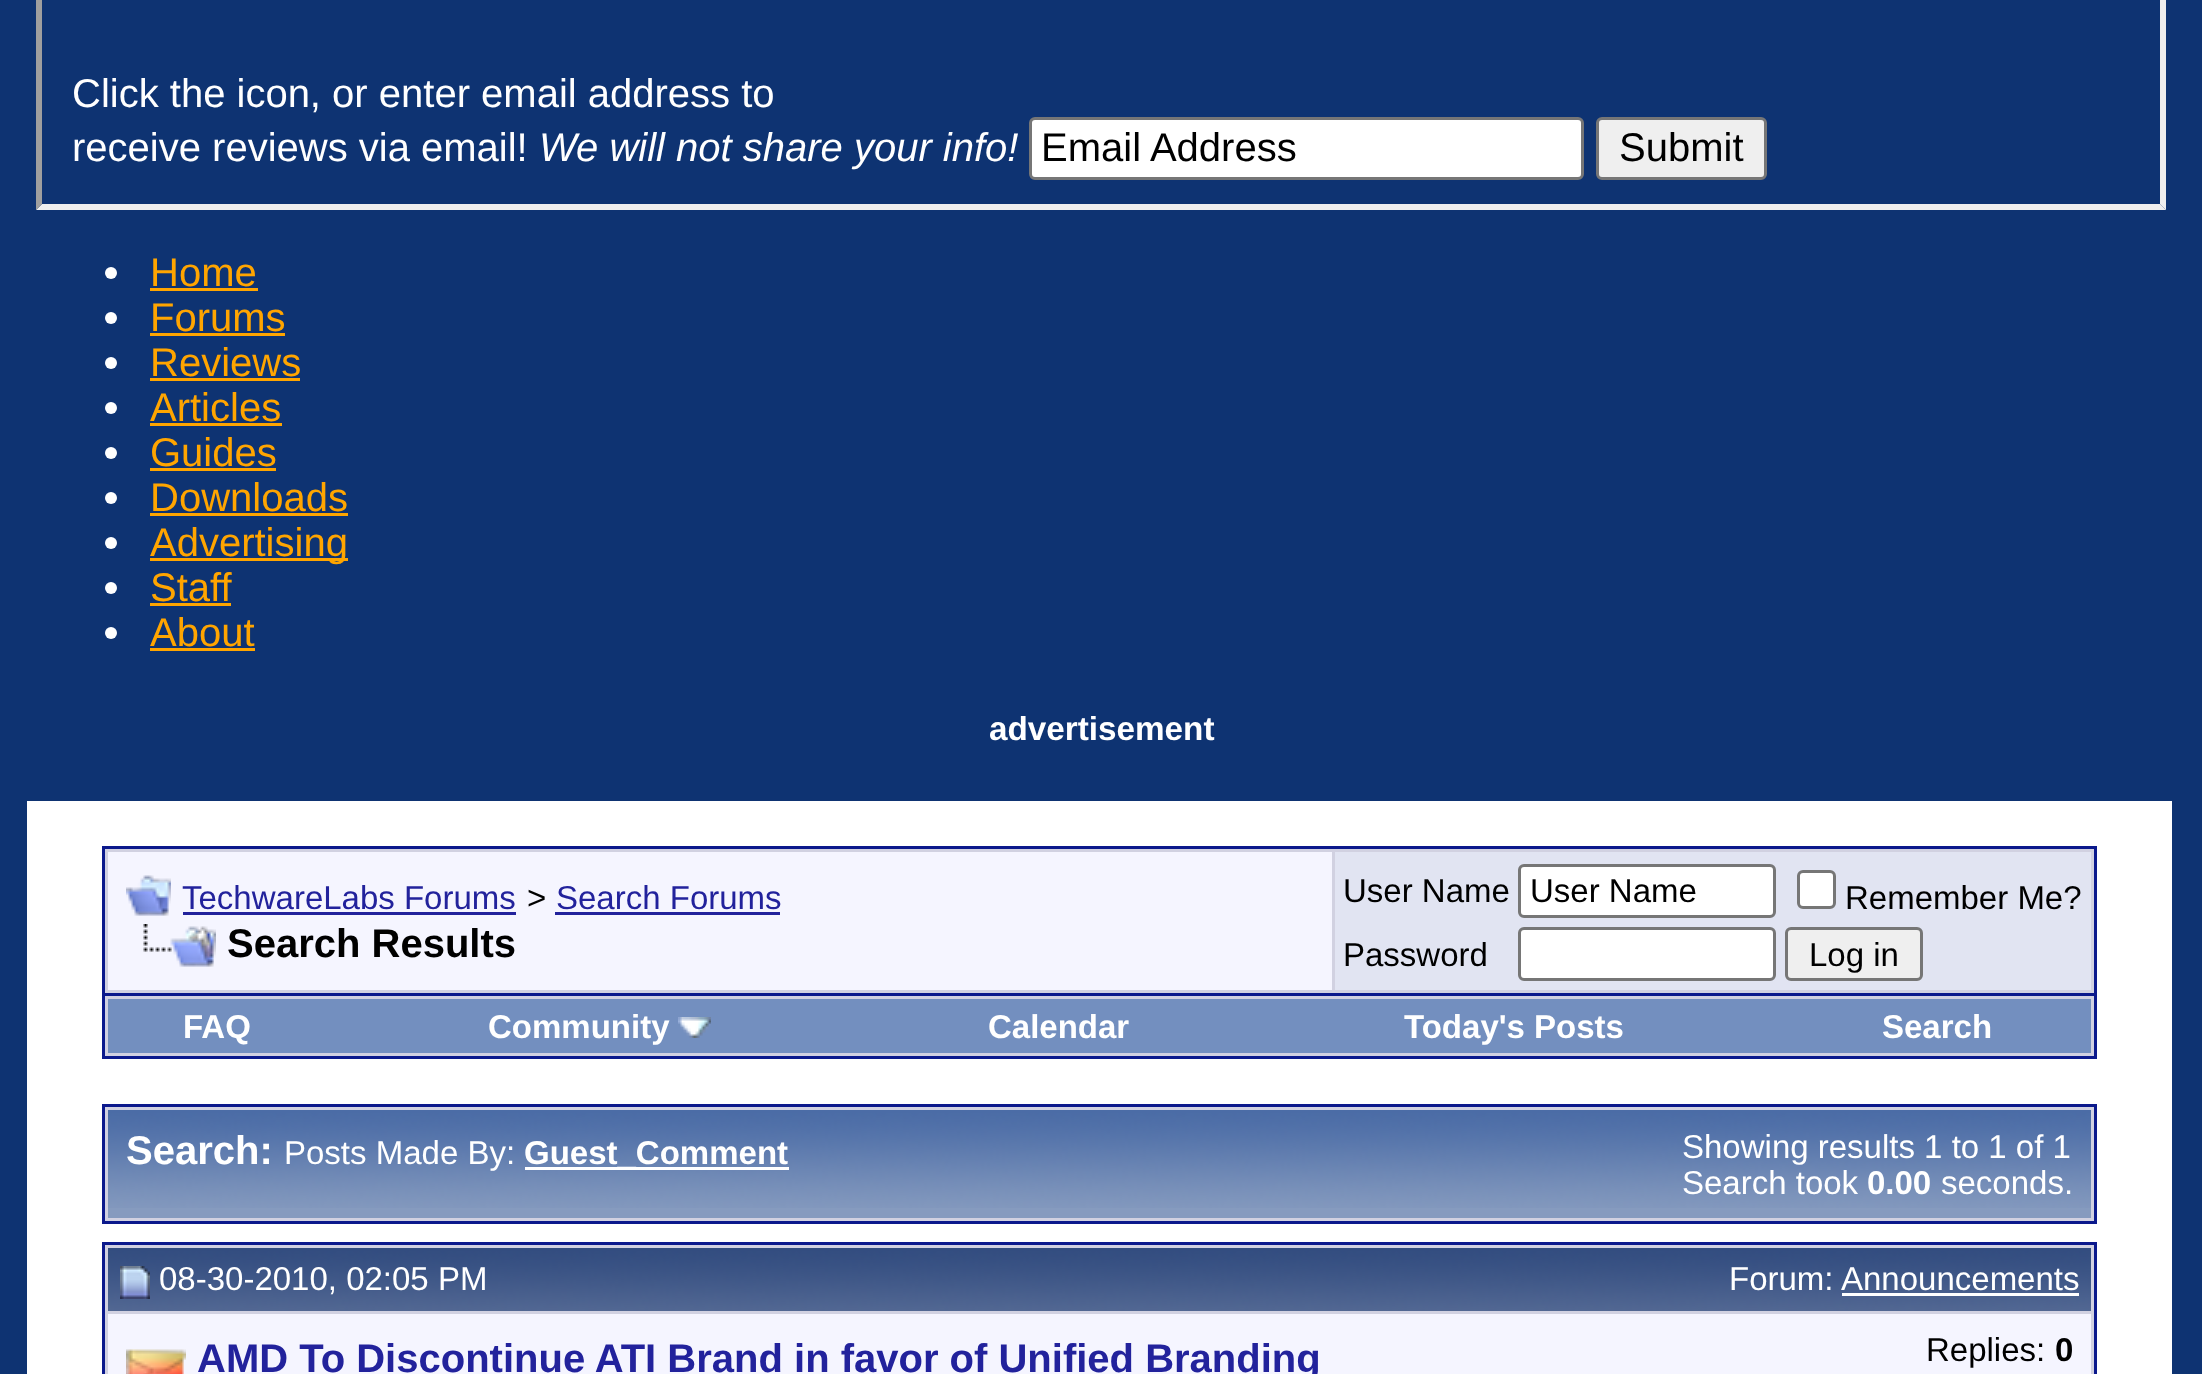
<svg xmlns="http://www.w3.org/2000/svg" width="2202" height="1374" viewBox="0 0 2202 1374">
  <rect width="100%" height="100%" fill="rgb(14,51,114)"/>
  <path d="M2166-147V210L2160 204V-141Z" fill="rgb(239,239,239)"/>
  <path d="M2166 210H36L42 204H2160Z" fill="rgb(239,239,239)"/>
  <path d="M36 210V-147L42-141V204Z" fill="rgb(159,159,159)"/>
  <g font-family="Liberation Sans" font-size="40" fill="rgb(255,255,255)">
    <text>
      <tspan x="72" y="107">Click the icon, or enter email address to</tspan>
      <tspan x="72" y="161">receive reviews via email!</tspan>
    </text>
  </g>
  <text x="539" y="161" font-family="Liberation Sans" font-size="40" font-style="italic" fill="rgb(255,255,255)">We will not share your info!</text>
  <rect x="1030.5" y="118.5" width="552" height="60" rx="4.5" fill="rgb(255,255,255)" stroke="rgb(118,118,118)" stroke-width="3"/>
  <text x="1041" y="161" font-family="Liberation Sans" font-size="40" fill="rgb(0,0,0)">Email Address</text>
  <rect x="1597.5" y="118.5" width="168" height="60" rx="4.5" fill="rgb(239,239,239)" stroke="rgb(118,118,118)" stroke-width="3"/>
  <text x="1619" y="161" font-family="Liberation Sans" font-size="40" fill="rgb(0,0,0)">Submit</text>
  <circle cx="111" cy="273" r="6" fill="rgb(255,255,255)"/>
  <text x="150" y="286" font-family="Liberation Sans" font-size="40" fill="rgb(255,165,0)">Home</text>
  <rect x="150" y="288" width="108" height="3" fill="rgb(255,165,0)"/>
  <circle cx="111" cy="318" r="6" fill="rgb(255,255,255)"/>
  <text x="150" y="331" font-family="Liberation Sans" font-size="40" fill="rgb(255,165,0)">Forums</text>
  <rect x="150" y="333" width="135" height="3" fill="rgb(255,165,0)"/>
  <circle cx="111" cy="363" r="6" fill="rgb(255,255,255)"/>
  <text x="150" y="376" font-family="Liberation Sans" font-size="40" fill="rgb(255,165,0)">Reviews</text>
  <rect x="150" y="378" width="150" height="3" fill="rgb(255,165,0)"/>
  <circle cx="111" cy="408" r="6" fill="rgb(255,255,255)"/>
  <text x="150" y="421" font-family="Liberation Sans" font-size="40" fill="rgb(255,165,0)">Articles</text>
  <rect x="150" y="423" width="132" height="3" fill="rgb(255,165,0)"/>
  <circle cx="111" cy="453" r="6" fill="rgb(255,255,255)"/>
  <text x="150" y="466" font-family="Liberation Sans" font-size="40" fill="rgb(255,165,0)">Guides</text>
  <rect x="150" y="468" width="126" height="3" fill="rgb(255,165,0)"/>
  <circle cx="111" cy="498" r="6" fill="rgb(255,255,255)"/>
  <text x="150" y="511" font-family="Liberation Sans" font-size="40" fill="rgb(255,165,0)">Downloads</text>
  <rect x="150" y="513" width="198" height="3" fill="rgb(255,165,0)"/>
  <circle cx="111" cy="543" r="6" fill="rgb(255,255,255)"/>
  <rect x="150" y="558" width="198" height="3" fill="rgb(255,165,0)"/>
  <text x="150" y="556" font-family="Liberation Sans" font-size="40" fill="rgb(255,165,0)">Advertising</text>
  <circle cx="111" cy="588" r="6" fill="rgb(255,255,255)"/>
  <text x="150" y="601" font-family="Liberation Sans" font-size="40" fill="rgb(255,165,0)">Staff</text>
  <rect x="150" y="603" width="81" height="3" fill="rgb(255,165,0)"/>
  <circle cx="111" cy="633" r="6" fill="rgb(255,255,255)"/>
  <text x="150" y="646" font-family="Liberation Sans" font-size="40" fill="rgb(255,165,0)">About</text>
  <rect x="150" y="648" width="105" height="3" fill="rgb(255,165,0)"/>
  <text x="989" y="740" font-family="Liberation Sans" font-size="33.25" font-weight="bold" fill="rgb(255,255,255)">advertisement</text>
  <rect x="27" y="801" width="2145" height="573" fill="rgb(255,255,255)"/>
  <rect x="103.5" y="847.5" width="1992" height="147" fill="rgb(209,209,225)" stroke="rgb(11,25,140)" stroke-width="3"/>
  <rect x="108" y="852" width="1224" height="138" fill="rgb(245,245,255)"/>
  <image x="126" y="875" width="45" height="41" href="pic1.png"/>
  <text x="182" y="909" font-family="Liberation Sans" font-size="33" fill="rgb(34,34,156)">TechwareLabs Forums</text>
  <rect x="183" y="912" width="333" height="3" fill="rgb(34,34,156)"/>
  <text x="527" y="909" font-family="Liberation Sans" font-size="33" fill="rgb(0,0,0)">&gt;</text>
  <text x="556" y="909" font-family="Liberation Sans" font-size="33" fill="rgb(34,34,156)">Search Forums</text>
  <rect x="555" y="912" width="225" height="3" fill="rgb(34,34,156)"/>
  <image x="143" y="924" width="73" height="43" href="pic2.png"/>
  <text x="227" y="957" font-family="Liberation Sans" font-size="40" font-weight="bold" fill="rgb(0,0,0)">Search Results</text>
  <rect x="1335" y="852" width="756" height="138" fill="rgb(225,228,242)"/>
  <text x="1343" y="902" font-family="Liberation Sans" font-size="33" fill="rgb(0,0,0)">User Name</text>
  <rect x="1519.5" y="865.5" width="255" height="51" rx="4.5" fill="rgb(255,255,255)" stroke="rgb(118,118,118)" stroke-width="3"/>
  <text x="1530" y="902" font-family="Liberation Sans" font-size="33" fill="rgb(0,0,0)">User Name</text>
  <rect x="1798.5" y="871.5" width="36" height="36" rx="4.5" fill="rgb(255,255,255)" stroke="rgb(118,118,118)" stroke-width="3"/>
  <g font-family="Liberation Sans" font-size="33" fill="rgb(0,0,0)">
    <text x="1845" y="909">Remember Me?</text>
    <text x="1343" y="966">Password</text>
  </g>
  <rect x="1519.5" y="928.5" width="255" height="51" rx="4.5" fill="rgb(255,255,255)" stroke="rgb(118,118,118)" stroke-width="3"/>
  <rect x="1786.5" y="928.5" width="135" height="51" rx="4.5" fill="rgb(239,239,239)" stroke="rgb(118,118,118)" stroke-width="3"/>
  <text x="1809" y="966" font-family="Liberation Sans" font-size="33" fill="rgb(0,0,0)">Log in</text>
  <rect x="105" y="996" width="1989" height="60" fill="rgb(209,209,225)"/>
  <rect x="2094" y="996" width="3" height="63" fill="rgb(11,25,140)"/>
  <rect x="102" y="1056" width="1995" height="3" fill="rgb(11,25,140)"/>
  <rect x="102" y="996" width="3" height="63" fill="rgb(11,25,140)"/>
  <rect x="108" y="999" width="1983" height="54" fill="rgb(115,143,191)"/>
  <g font-family="Liberation Sans" font-size="33" font-weight="bold" fill="rgb(255,255,255)">
    <text x="183" y="1038">FAQ</text>
    <text x="488" y="1038">Community</text>
  </g>
  <image x="678" y="1017" width="33" height="21" href="pic3.png"/>
  <g font-family="Liberation Sans" font-size="33" font-weight="bold" fill="rgb(255,255,255)">
    <text x="988" y="1038">Calendar</text>
    <text x="1404" y="1038">Today's Posts</text>
    <text x="1882" y="1038">Search</text>
  </g>
  <rect x="103.5" y="1105.5" width="1992" height="117" fill="rgb(209,209,225)" stroke="rgb(11,25,140)" stroke-width="3"/>
  <rect x="108" y="1208" width="1983" height="10" fill="rgb(134,155,191)"/>
  <image x="108" y="1110" width="1983" height="98" href="pic4.png"/>
  <text x="126" y="1164" font-family="Liberation Sans" font-size="40" font-weight="bold" fill="rgb(255,255,255)">Search:</text>
  <text x="284" y="1164" font-family="Liberation Sans" font-size="33" fill="rgb(255,255,255)">Posts Made By:</text>
  <rect x="525" y="1167" width="264" height="3" fill="rgb(255,255,255)"/>
  <text x="524" y="1164" font-family="Liberation Sans" font-size="33" font-weight="bold" fill="rgb(255,255,255)">Guest_Comment</text>
  <g font-family="Liberation Sans" font-size="33" fill="rgb(255,255,255)">
    <text>
      <tspan x="1682" y="1158">Showing results 1 to 1 of 1</tspan>
      <tspan x="1682" y="1194">Search took</tspan>
    </text>
  </g>
  <text x="1867" y="1194" font-family="Liberation Sans" font-size="33" font-weight="bold" fill="rgb(255,255,255)">0.00</text>
  <text x="1941" y="1194" font-family="Liberation Sans" font-size="33" fill="rgb(255,255,255)">seconds.</text>
  <rect x="103.5" y="1243.5" width="1992" height="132" fill="rgb(209,209,225)" stroke="rgb(11,25,140)" stroke-width="3"/>
  <image x="108" y="1248" width="1983" height="63" href="pic5.png"/>
  <image x="120" y="1266" width="30" height="33" href="pic6.png"/>
  <g font-family="Liberation Sans" font-size="33" fill="rgb(255,255,255)">
    <text x="159" y="1290">08-30-2010, 02:05 PM</text>
    <text x="1729" y="1290">Forum:</text>
    <text x="1841" y="1290">Announcements</text>
  </g>
  <rect x="1842" y="1293" width="237" height="3" fill="rgb(255,255,255)"/>
  <rect x="108" y="1314" width="1983" height="60" fill="rgb(245,245,255)"/>
  <image x="126" y="1349" width="60" height="25" href="pic7.png"/>
  <text x="197" y="1372" font-family="Liberation Sans" font-size="40" font-weight="bold" fill="rgb(34,34,156)">AMD To Discontinue ATI Brand in favor of Unified Branding</text>
  <text x="1926" y="1361" font-family="Liberation Sans" font-size="33" fill="rgb(0,0,0)">Replies:</text>
  <text x="2055" y="1361" font-family="Liberation Sans" font-size="33" font-weight="bold" fill="rgb(0,0,0)">0</text>
</svg>
